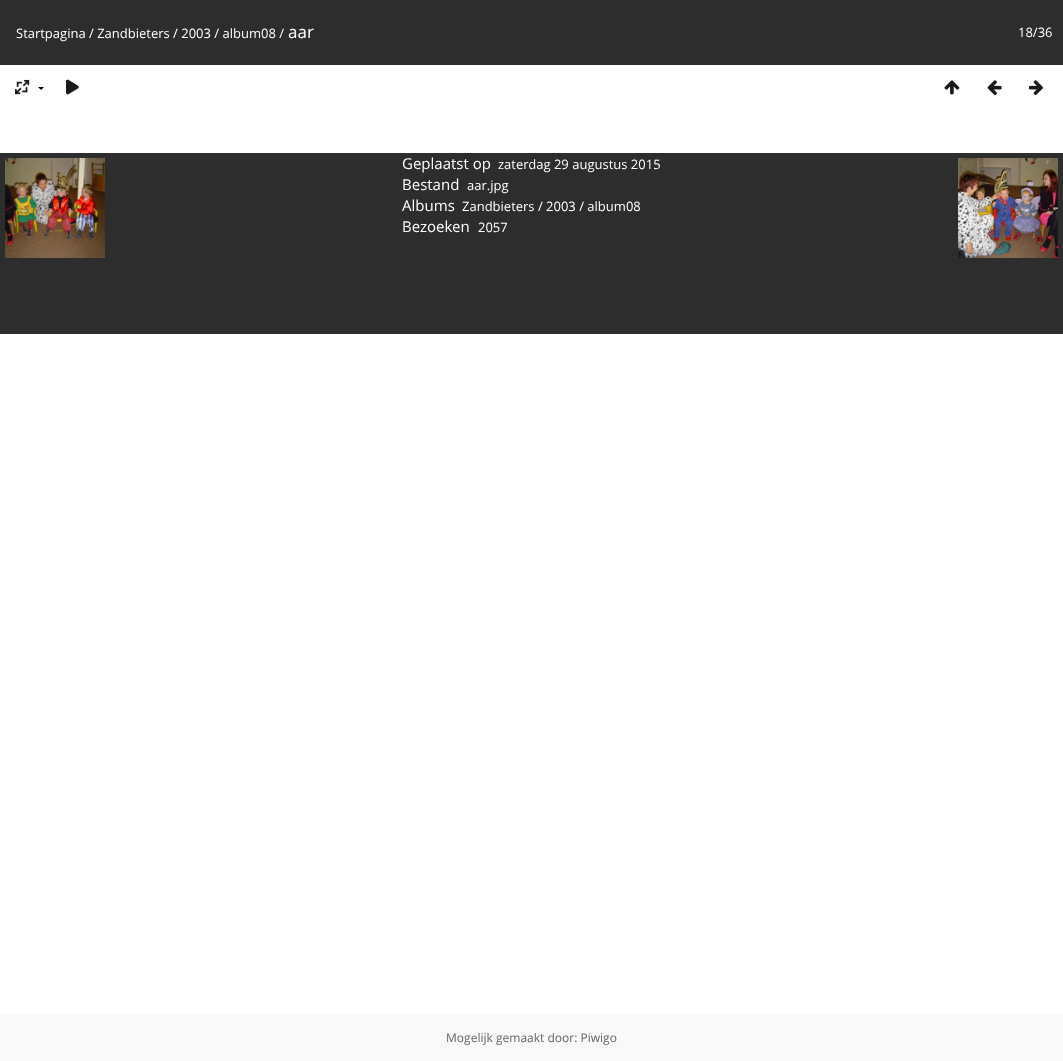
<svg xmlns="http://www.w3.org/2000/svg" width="1063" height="1061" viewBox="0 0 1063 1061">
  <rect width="100%" height="100%" fill="rgb(255,255,255)"/>
  <rect x="0" y="0" width="1063" height="65" fill="rgb(45,45,45)"/>
  <text x="16" y="38" font-family="Open Sans" font-size="13" fill="rgb(255,255,255)">Startpagina / Zandbieters / 2003 / album08 /</text>
  <text x="288" y="38" font-family="Open Sans" font-size="17" fill="rgb(255,255,255)">aar</text>
  <text x="1018" y="37" font-family="Open Sans" font-size="13" fill="rgb(255,255,255)">18/36</text>
  <image x="15" y="79" width="15" height="16" href="pic1.png"/>
  <path d="M38 87H44L41 90Z" fill="rgb(0,0,0)"/>
  <image x="66" y="79" width="13" height="16" href="pic2.png"/>
  <image x="944" y="80" width="16" height="15" href="pic3.png"/>
  <image x="987" y="80" width="15" height="15" href="pic4.png"/>
  <image x="1029" y="80" width="14" height="15" href="pic5.png"/>
  <rect x="0" y="153" width="1063" height="181" fill="rgb(45,45,45)"/>
  <text x="402" y="169" font-family="Open Sans" font-size="15" fill="rgb(255,255,255)">Geplaatst op</text>
  <text x="498" y="169" font-family="Open Sans" font-size="13" fill="rgb(255,255,255)">zaterdag 29 augustus 2015</text>
  <text x="402" y="190" font-family="Open Sans" font-size="15" fill="rgb(255,255,255)">Bestand</text>
  <text x="467" y="190" font-family="Open Sans" font-size="13" fill="rgb(255,255,255)">aar.jpg</text>
  <text x="402" y="211" font-family="Open Sans" font-size="15" fill="rgb(255,255,255)">Albums</text>
  <text x="462" y="211" font-family="Open Sans" font-size="13" fill="rgb(255,255,255)">Zandbieters / 2003 / album08</text>
  <text x="402" y="232" font-family="Open Sans" font-size="15" fill="rgb(255,255,255)">Bezoeken</text>
  <text x="478" y="232" font-family="Open Sans" font-size="13" fill="rgb(255,255,255)">2057</text>
  <image x="5" y="158" width="100" height="100" href="pic6.png"/>
  <image x="958" y="158" width="100" height="100" href="pic7.png"/>
  <rect x="0" y="1014" width="1063" height="47" fill="rgb(249,249,249)"/>
  <text x="446" y="1042" font-family="Open Sans" font-size="12" fill="rgb(102,102,102)">Mogelijk gemaakt door: Piwigo</text>
</svg>
